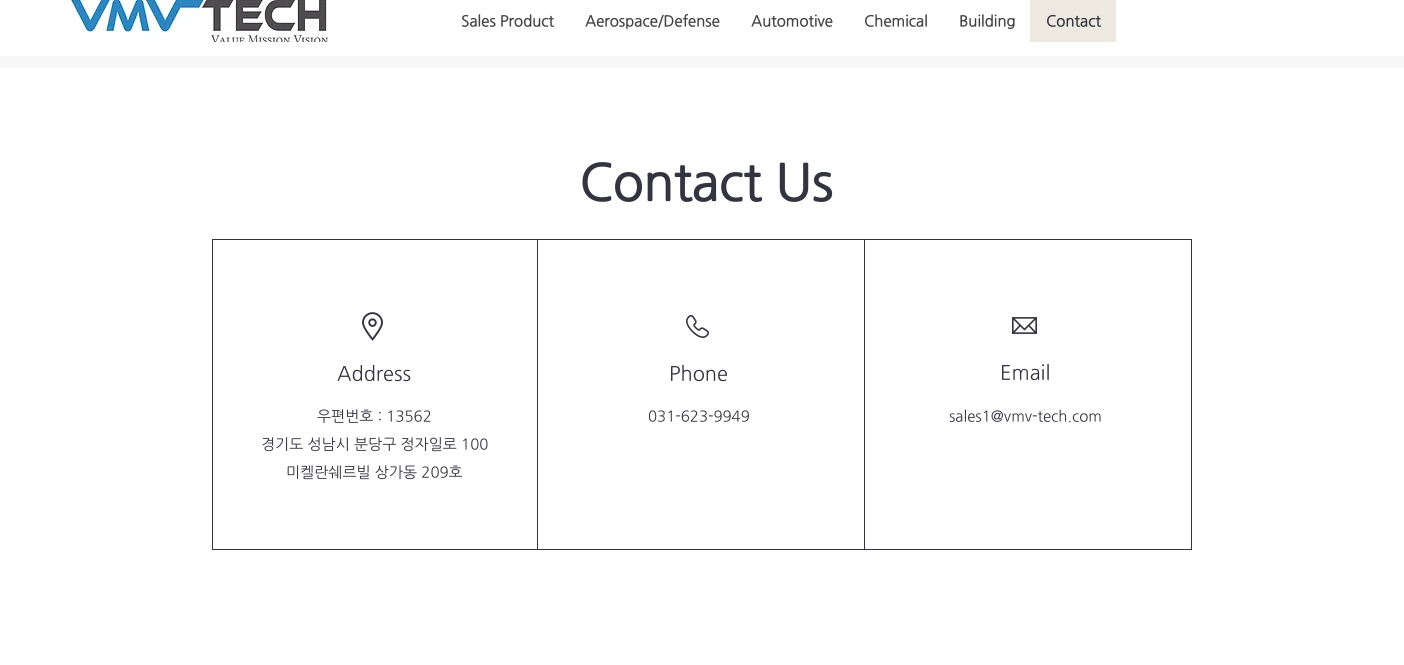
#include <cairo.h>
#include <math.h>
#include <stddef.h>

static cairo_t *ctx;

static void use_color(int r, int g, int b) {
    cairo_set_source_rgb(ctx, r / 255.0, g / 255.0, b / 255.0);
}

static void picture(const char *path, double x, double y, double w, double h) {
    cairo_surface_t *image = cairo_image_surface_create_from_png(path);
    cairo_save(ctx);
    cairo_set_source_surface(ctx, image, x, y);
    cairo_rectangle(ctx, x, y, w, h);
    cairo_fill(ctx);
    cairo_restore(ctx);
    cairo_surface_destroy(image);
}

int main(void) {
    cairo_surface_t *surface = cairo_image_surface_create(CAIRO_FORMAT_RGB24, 1404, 665);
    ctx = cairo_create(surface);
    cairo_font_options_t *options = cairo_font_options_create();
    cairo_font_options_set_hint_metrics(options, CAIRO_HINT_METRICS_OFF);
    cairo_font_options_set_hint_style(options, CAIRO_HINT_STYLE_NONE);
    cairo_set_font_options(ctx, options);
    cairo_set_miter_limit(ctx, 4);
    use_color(255, 255, 255);
    cairo_paint(ctx);
    picture("img1.png", 71, 0, 257, 42);
    cairo_select_font_face(ctx, "NanumGothic", CAIRO_FONT_SLANT_NORMAL, CAIRO_FONT_WEIGHT_BOLD);
    cairo_set_font_size(ctx, 15);
    use_color(68, 68, 68);
    cairo_move_to(ctx, 461, 26);
    cairo_show_text(ctx, "Sales Product");
    cairo_move_to(ctx, 585, 26);
    cairo_show_text(ctx, "Aerospace/Defense");
    cairo_move_to(ctx, 751, 26);
    cairo_show_text(ctx, "Automotive");
    cairo_move_to(ctx, 864, 26);
    cairo_show_text(ctx, "Chemical");
    cairo_move_to(ctx, 959, 26);
    cairo_show_text(ctx, "Building");
    use_color(237, 233, 225);
    cairo_rectangle(ctx, 1030, 0, 86, 42);
    cairo_fill(ctx);
    use_color(51, 52, 63);
    cairo_move_to(ctx, 1046, 26);
    cairo_show_text(ctx, "Contact");
    use_color(247, 247, 247);
    cairo_rectangle(ctx, 0, 56, 1404, 12);
    cairo_fill(ctx);
    cairo_set_font_size(ctx, 50);
    use_color(51, 52, 63);
    cairo_move_to(ctx, 579, 199);
    cairo_show_text(ctx, "Contact Us");
    cairo_rectangle(ctx, 212, 239, 980, 311);
    cairo_fill(ctx);
    use_color(255, 255, 255);
    cairo_rectangle(ctx, 213, 240, 324, 309);
    cairo_fill(ctx);
    picture("img2.png", 362, 312, 21, 29);
    cairo_select_font_face(ctx, "NanumGothic", CAIRO_FONT_SLANT_NORMAL, CAIRO_FONT_WEIGHT_NORMAL);
    cairo_set_font_size(ctx, 20);
    use_color(51, 52, 63);
    cairo_move_to(ctx, 337, 380);
    cairo_show_text(ctx, "Address");
    cairo_set_font_size(ctx, 15);
    cairo_move_to(ctx, 317, 421);
    cairo_show_text(ctx, "우편번호 : 13562");
    cairo_move_to(ctx, 261, 449);
    cairo_show_text(ctx, "경기도 성남시 분당구 정자일로 100");
    cairo_move_to(ctx, 286, 477);
    cairo_show_text(ctx, "미켈란쉐르빌 상가동 209호");
    use_color(255, 255, 255);
    cairo_rectangle(ctx, 538, 240, 326, 309);
    cairo_fill(ctx);
    picture("img3.png", 686, 315, 23, 23);
    cairo_set_font_size(ctx, 20);
    use_color(51, 52, 63);
    cairo_move_to(ctx, 669, 380);
    cairo_show_text(ctx, "Phone");
    cairo_set_font_size(ctx, 15);
    cairo_move_to(ctx, 648, 421);
    cairo_show_text(ctx, "031-623-9949");
    use_color(255, 255, 255);
    cairo_rectangle(ctx, 865, 240, 326, 309);
    cairo_fill(ctx);
    picture("img4.png", 1012, 317, 25, 17);
    cairo_set_font_size(ctx, 20);
    use_color(51, 52, 63);
    cairo_move_to(ctx, 1000, 379);
    cairo_show_text(ctx, "Email");
    cairo_set_font_size(ctx, 15);
    cairo_move_to(ctx, 949, 421);
    cairo_show_text(ctx, "sales1@vmv-tech.com");
    cairo_surface_write_to_png(surface, "result.png");
    cairo_font_options_destroy(options);
    cairo_destroy(ctx);
    cairo_surface_destroy(surface);
    return 0;
}
